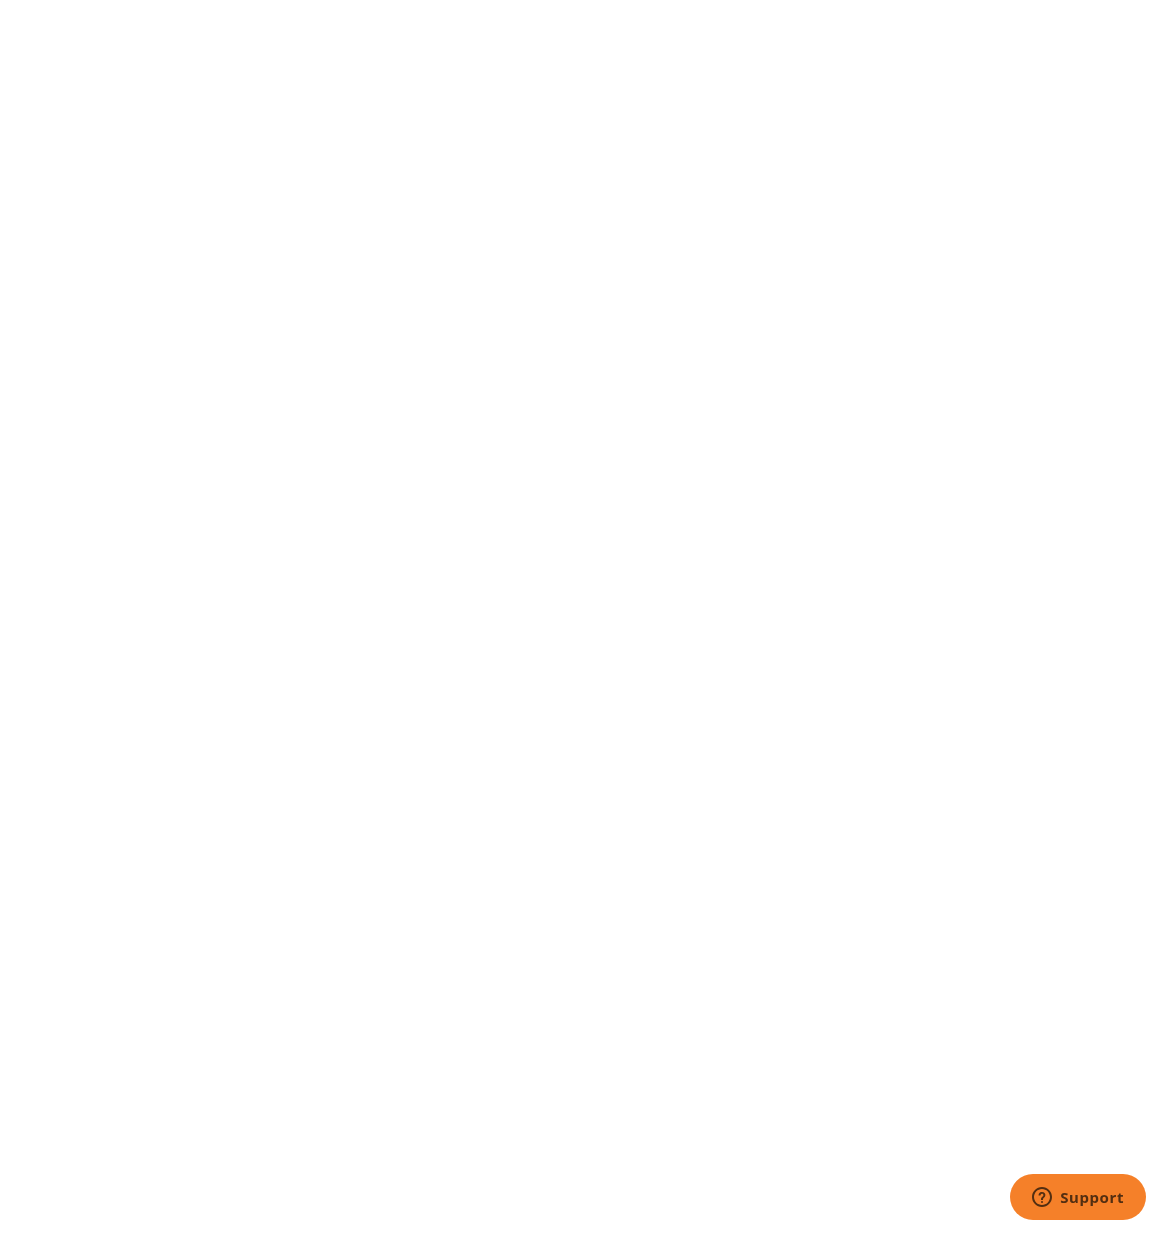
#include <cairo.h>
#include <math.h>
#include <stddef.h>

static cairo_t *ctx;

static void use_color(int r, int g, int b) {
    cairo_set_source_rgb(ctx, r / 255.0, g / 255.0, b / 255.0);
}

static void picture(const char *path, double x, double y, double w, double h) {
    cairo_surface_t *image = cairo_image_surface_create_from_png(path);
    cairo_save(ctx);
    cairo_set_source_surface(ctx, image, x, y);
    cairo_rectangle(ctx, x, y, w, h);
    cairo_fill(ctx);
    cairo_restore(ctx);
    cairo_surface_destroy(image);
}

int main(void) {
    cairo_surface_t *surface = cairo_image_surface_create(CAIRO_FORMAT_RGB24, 1166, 1234);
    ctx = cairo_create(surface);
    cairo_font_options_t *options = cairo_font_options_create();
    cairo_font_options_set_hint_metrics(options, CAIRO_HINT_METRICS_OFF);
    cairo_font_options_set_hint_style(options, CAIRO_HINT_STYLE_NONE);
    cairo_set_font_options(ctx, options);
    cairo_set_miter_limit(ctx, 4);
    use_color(255, 255, 255);
    cairo_paint(ctx);
    picture("img1.png", 1010, 1174, 136, 46);
    cairo_surface_write_to_png(surface, "result.png");
    cairo_font_options_destroy(options);
    cairo_destroy(ctx);
    cairo_surface_destroy(surface);
    return 0;
}
